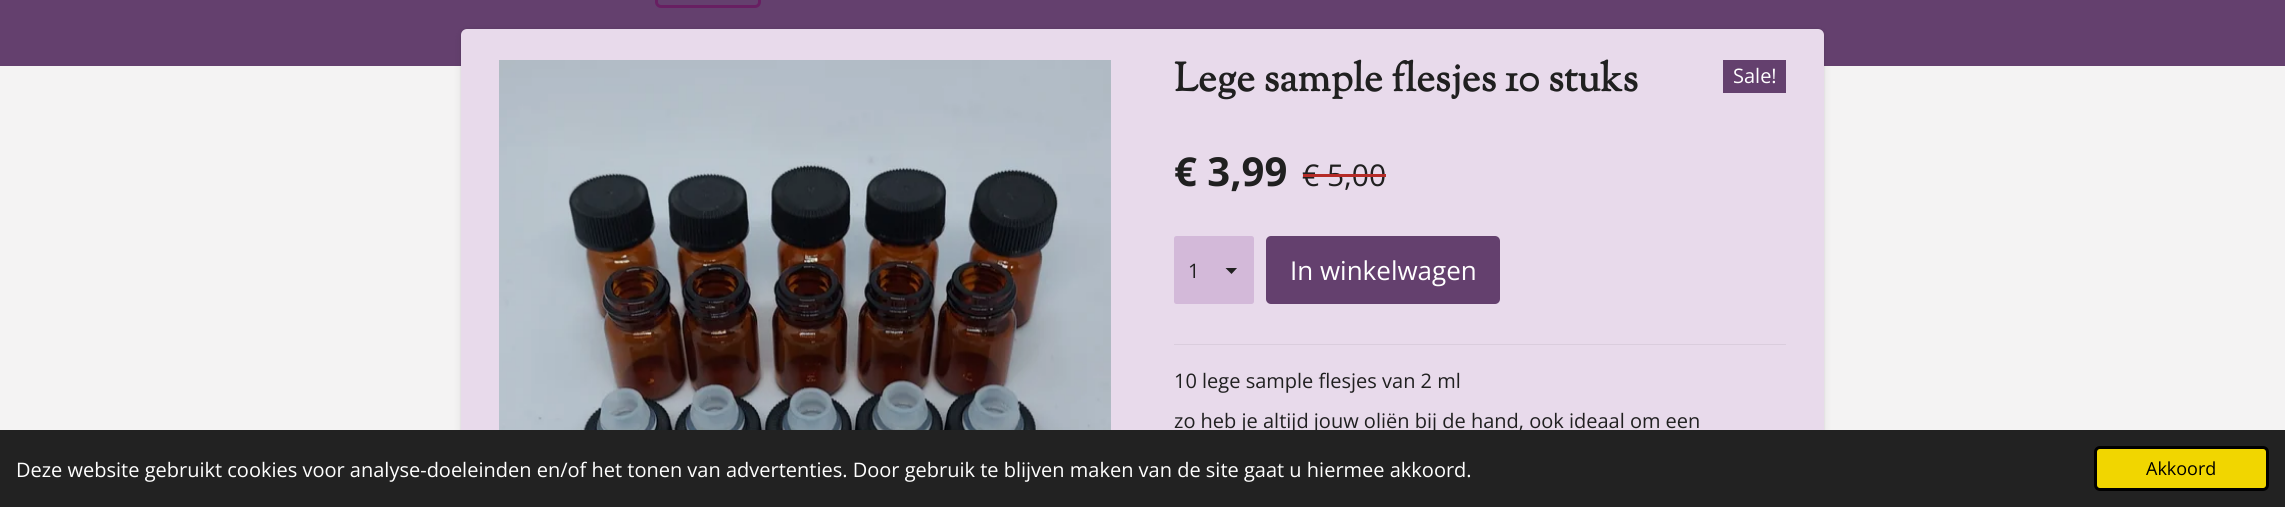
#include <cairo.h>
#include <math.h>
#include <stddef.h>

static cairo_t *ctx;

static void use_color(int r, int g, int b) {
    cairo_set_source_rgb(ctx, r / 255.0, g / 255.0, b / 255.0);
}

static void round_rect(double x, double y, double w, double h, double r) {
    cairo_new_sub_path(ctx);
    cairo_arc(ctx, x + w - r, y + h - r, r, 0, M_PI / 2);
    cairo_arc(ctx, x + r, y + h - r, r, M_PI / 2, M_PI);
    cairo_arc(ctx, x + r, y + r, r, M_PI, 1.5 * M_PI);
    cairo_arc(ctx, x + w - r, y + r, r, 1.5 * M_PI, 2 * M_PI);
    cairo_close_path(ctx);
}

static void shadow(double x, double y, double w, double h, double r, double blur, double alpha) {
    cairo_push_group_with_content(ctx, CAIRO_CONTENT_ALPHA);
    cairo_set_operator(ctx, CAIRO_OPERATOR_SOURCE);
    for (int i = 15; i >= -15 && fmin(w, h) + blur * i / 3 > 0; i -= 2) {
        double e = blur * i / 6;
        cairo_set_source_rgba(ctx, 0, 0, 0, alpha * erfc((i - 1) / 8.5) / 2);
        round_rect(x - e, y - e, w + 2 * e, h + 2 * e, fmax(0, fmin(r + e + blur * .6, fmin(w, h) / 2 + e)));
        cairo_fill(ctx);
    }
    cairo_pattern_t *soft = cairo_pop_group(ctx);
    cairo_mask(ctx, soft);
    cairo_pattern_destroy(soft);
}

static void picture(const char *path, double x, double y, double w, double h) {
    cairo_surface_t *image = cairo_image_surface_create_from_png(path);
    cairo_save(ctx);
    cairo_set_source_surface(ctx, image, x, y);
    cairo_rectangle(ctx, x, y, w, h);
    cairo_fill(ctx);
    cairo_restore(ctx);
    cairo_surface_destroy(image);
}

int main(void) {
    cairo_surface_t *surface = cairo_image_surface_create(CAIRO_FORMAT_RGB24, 2285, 507);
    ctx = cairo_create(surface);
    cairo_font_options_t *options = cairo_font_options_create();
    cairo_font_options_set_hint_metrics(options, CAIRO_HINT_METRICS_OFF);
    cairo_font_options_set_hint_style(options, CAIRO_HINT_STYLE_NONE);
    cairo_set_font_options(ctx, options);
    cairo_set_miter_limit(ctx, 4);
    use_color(244, 243, 243);
    cairo_paint(ctx);
    use_color(100, 64, 110);
    cairo_rectangle(ctx, 0, 0, 2285, 66);
    cairo_fill(ctx);
    round_rect(656.5, -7.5, 103, 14, 4.5);
    use_color(104, 31, 98);
    cairo_set_line_width(ctx, 3);
    cairo_stroke(ctx);
    use_color(0, 0, 0);
    shadow(461, 29, 1363, 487, 6, 1, 0.1);
    shadow(461, 31, 1363, 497, 6, 5, 0.07);
    use_color(232, 218, 235);
    round_rect(461, 29, 1363, 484, 6);
    cairo_fill(ctx);
    picture("img1.png", 499, 60, 612, 370);
    cairo_select_font_face(ctx, "Sorts Mill Goudy", CAIRO_FONT_SLANT_NORMAL, CAIRO_FONT_WEIGHT_BOLD);
    cairo_set_font_size(ctx, 40);
    use_color(32, 32, 32);
    cairo_move_to(ctx, 1174, 91);
    cairo_show_text(ctx, "Lege sample flesjes 10 stuks");
    use_color(100, 64, 110);
    cairo_rectangle(ctx, 1723, 60, 63, 33);
    cairo_fill(ctx);
    cairo_select_font_face(ctx, "Open Sans", CAIRO_FONT_SLANT_NORMAL, CAIRO_FONT_WEIGHT_NORMAL);
    cairo_set_font_size(ctx, 20);
    use_color(255, 255, 255);
    cairo_move_to(ctx, 1733, 83);
    cairo_show_text(ctx, "Sale!");
    cairo_select_font_face(ctx, "Open Sans", CAIRO_FONT_SLANT_NORMAL, CAIRO_FONT_WEIGHT_BOLD);
    cairo_set_font_size(ctx, 40);
    use_color(32, 32, 32);
    cairo_move_to(ctx, 1174, 186);
    cairo_show_text(ctx, "€ 3,99");
    cairo_select_font_face(ctx, "Open Sans", CAIRO_FONT_SLANT_NORMAL, CAIRO_FONT_WEIGHT_NORMAL);
    cairo_set_font_size(ctx, 30);
    cairo_move_to(ctx, 1302, 186);
    cairo_show_text(ctx, "€ 5,00");
    use_color(181, 43, 39);
    cairo_rectangle(ctx, 1303, 174, 83, 3);
    cairo_fill(ctx);
    use_color(211, 185, 217);
    round_rect(1174, 236, 80, 68, 2.5);
    cairo_fill(ctx);
    cairo_save(ctx);
    cairo_rectangle(ctx, 1225, 268, 14, 6);
    cairo_clip(ctx);
    use_color(32, 32, 32);
    cairo_new_path(ctx);
    cairo_move_to(ctx, 1231.5, 274);
    cairo_line_to(ctx, 1225, 267.5);
    cairo_line_to(ctx, 1237.5, 267.5);
    cairo_close_path(ctx);
    cairo_fill(ctx);
    cairo_restore(ctx);
    cairo_set_font_size(ctx, 20);
    use_color(32, 32, 32);
    cairo_move_to(ctx, 1188, 278);
    cairo_show_text(ctx, "1");
    use_color(100, 64, 110);
    round_rect(1266, 236, 234, 68, 5);
    cairo_fill(ctx);
    cairo_set_font_size(ctx, 26);
    use_color(255, 255, 255);
    cairo_move_to(ctx, 1290, 280);
    cairo_show_text(ctx, "In winkelwagen");
    use_color(218, 205, 221);
    cairo_rectangle(ctx, 1174, 344, 612, 1);
    cairo_fill(ctx);
    cairo_set_font_size(ctx, 20);
    use_color(32, 32, 32);
    cairo_move_to(ctx, 1174, 388);
    cairo_show_text(ctx, "10 lege sample flesjes van 2 ml");
    cairo_move_to(ctx, 1174, 428);
    cairo_show_text(ctx, "zo heb je altijd jouw oliën bij de hand, ook ideaal om een");
    use_color(34, 34, 34);
    cairo_rectangle(ctx, 0, 430, 2285, 77);
    cairo_fill(ctx);
    use_color(255, 255, 255);
    cairo_move_to(ctx, 16, 477);
    cairo_show_text(ctx, "Deze website gebruikt cookies voor analyse-doeleinden en/of het tonen van advertenties. Door gebruik te blijven maken van de site gaat u hiermee akkoord.");
    use_color(241, 214, 0);
    round_rect(2095.5, 447.5, 172, 42, 4.5);
    cairo_fill_preserve(ctx);
    use_color(0, 0, 0);
    cairo_stroke(ctx);
    cairo_set_font_size(ctx, 18);
    cairo_move_to(ctx, 2146, 475);
    cairo_show_text(ctx, "Akkoord");
    cairo_surface_write_to_png(surface, "result.png");
    cairo_font_options_destroy(options);
    cairo_destroy(ctx);
    cairo_surface_destroy(surface);
    return 0;
}
